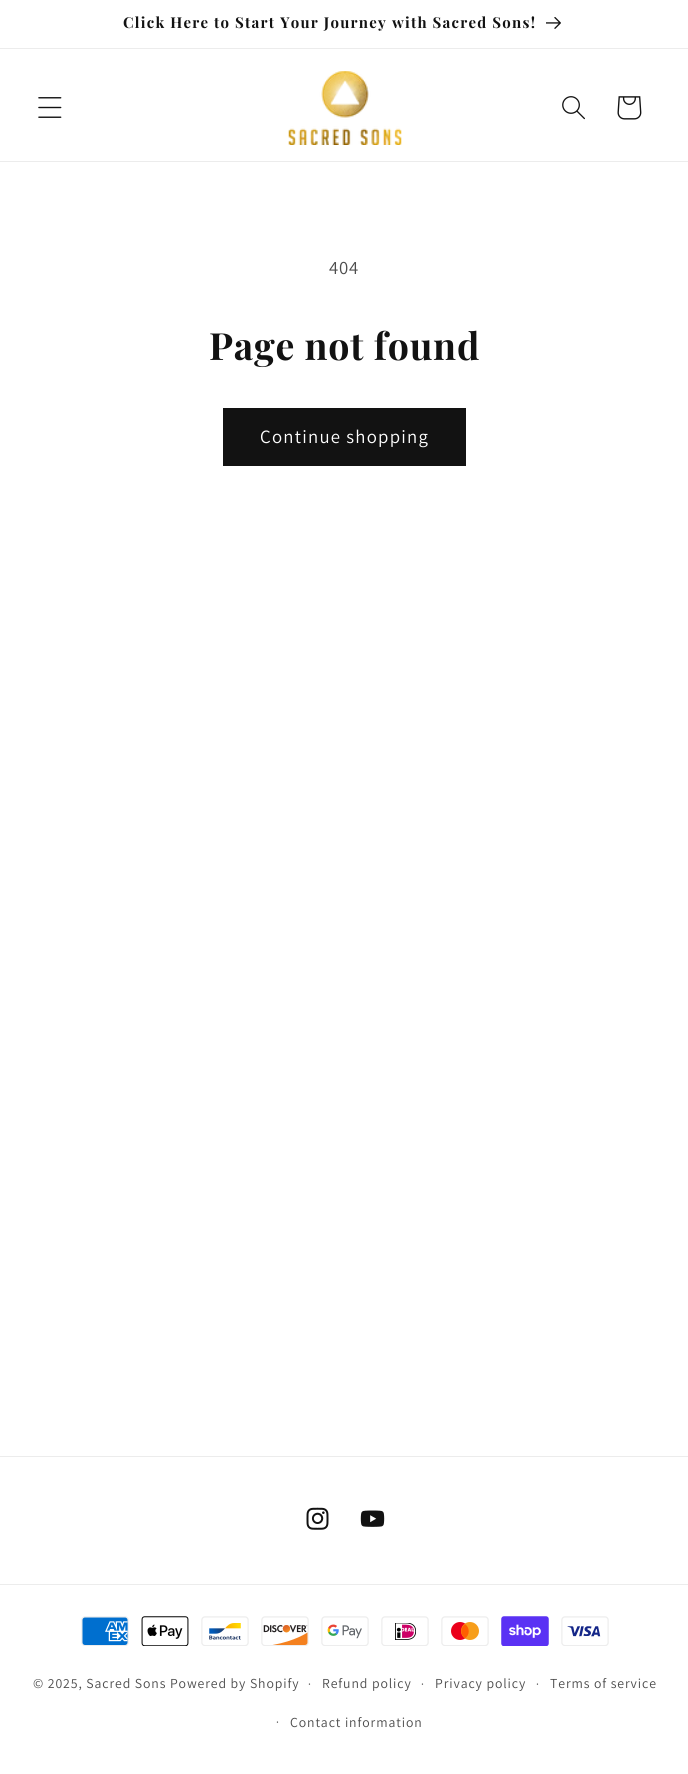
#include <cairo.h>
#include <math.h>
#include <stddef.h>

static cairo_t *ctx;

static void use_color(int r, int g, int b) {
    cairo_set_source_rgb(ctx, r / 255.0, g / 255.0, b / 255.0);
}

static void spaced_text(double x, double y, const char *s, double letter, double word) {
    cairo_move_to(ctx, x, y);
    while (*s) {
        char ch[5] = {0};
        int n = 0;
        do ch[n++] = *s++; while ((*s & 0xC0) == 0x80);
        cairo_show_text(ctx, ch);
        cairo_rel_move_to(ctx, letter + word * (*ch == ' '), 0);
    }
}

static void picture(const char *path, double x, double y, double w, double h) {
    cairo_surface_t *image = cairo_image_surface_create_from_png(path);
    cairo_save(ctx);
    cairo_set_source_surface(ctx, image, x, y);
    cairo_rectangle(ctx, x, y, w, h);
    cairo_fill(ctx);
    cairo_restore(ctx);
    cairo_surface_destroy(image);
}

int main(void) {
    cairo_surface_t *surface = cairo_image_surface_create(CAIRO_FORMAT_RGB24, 688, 1774);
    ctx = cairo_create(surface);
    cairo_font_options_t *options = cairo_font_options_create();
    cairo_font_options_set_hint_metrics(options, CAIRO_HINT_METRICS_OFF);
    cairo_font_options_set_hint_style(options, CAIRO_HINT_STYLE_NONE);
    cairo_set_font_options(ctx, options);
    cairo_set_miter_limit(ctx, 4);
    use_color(255, 255, 255);
    cairo_paint(ctx);
    use_color(236, 236, 236);
    cairo_rectangle(ctx, 0, 48, 688, 1);
    cairo_fill(ctx);
    cairo_select_font_face(ctx, "Playfair Display", CAIRO_FONT_SLANT_NORMAL, CAIRO_FONT_WEIGHT_BOLD);
    cairo_set_font_size(ctx, 15);
    use_color(18, 18, 18);
    spaced_text(123, 28, "Click Here to Start Your Journey with Sacred Sons!", 1.25, 0);
    picture("img1.png", 546, 17, 15, 12);
    use_color(236, 236, 236);
    cairo_rectangle(ctx, 0, 161, 688, 1);
    cairo_fill(ctx);
    picture("img2.png", 38, 97, 24, 21);
    picture("img3.png", 288, 71, 114, 74);
    picture("img4.png", 562, 96, 23, 24);
    picture("img5.png", 617, 96, 25, 24);
    cairo_select_font_face(ctx, "Assistant", CAIRO_FONT_SLANT_NORMAL, CAIRO_FONT_WEIGHT_NORMAL);
    cairo_set_font_size(ctx, 18.75);
    use_color(77, 77, 77);
    spaced_text(329, 274, "404", 0.75, 0);
    cairo_select_font_face(ctx, "Playfair Display", CAIRO_FONT_SLANT_NORMAL, CAIRO_FONT_WEIGHT_BOLD);
    cairo_set_font_size(ctx, 37.5);
    use_color(18, 18, 18);
    spaced_text(209, 360, "Page not found", 0.75, 0);
    cairo_rectangle(ctx, 223, 408, 243, 58);
    cairo_fill(ctx);
    cairo_select_font_face(ctx, "Assistant", CAIRO_FONT_SLANT_NORMAL, CAIRO_FONT_WEIGHT_NORMAL);
    cairo_set_font_size(ctx, 18.75);
    use_color(255, 255, 255);
    spaced_text(260, 443, "Continue shopping", 1.25, 0);
    use_color(236, 236, 236);
    cairo_rectangle(ctx, 0, 1456, 688, 1);
    cairo_fill(ctx);
    picture("img6.png", 306, 1507, 23, 23);
    picture("img7.png", 360, 1510, 25, 17);
    cairo_rectangle(ctx, 0, 1584, 688, 1);
    cairo_fill(ctx);
    picture("img8.png", 81, 1616, 48, 30);
    picture("img9.png", 141, 1616, 48, 30);
    picture("img10.png", 201, 1616, 48, 30);
    picture("img11.png", 261, 1616, 48, 30);
    picture("img12.png", 321, 1616, 48, 30);
    picture("img13.png", 381, 1616, 48, 30);
    picture("img14.png", 441, 1616, 48, 30);
    picture("img15.png", 501, 1616, 48, 30);
    picture("img16.png", 561, 1616, 48, 30);
    cairo_set_font_size(ctx, 13.75);
    use_color(77, 77, 77);
    spaced_text(33, 1688, "© 2025, Sacred Sons Powered by Shopify", 0.9, 0);
    cairo_set_font_size(ctx, 12);
    spaced_text(308, 1688, "·", 0.9, 0);
    cairo_set_font_size(ctx, 13.75);
    spaced_text(322, 1688, "Refund policy", 0.9, 0);
    cairo_set_font_size(ctx, 12);
    spaced_text(421, 1688, "·", 0.9, 0);
    cairo_set_font_size(ctx, 13.75);
    spaced_text(435, 1688, "Privacy policy", 0.9, 0);
    cairo_set_font_size(ctx, 12);
    spaced_text(536, 1688, "·", 0.9, 0);
    cairo_set_font_size(ctx, 13.75);
    spaced_text(550, 1688, "Terms of service", 0.9, 0);
    cairo_set_font_size(ctx, 12);
    spaced_text(276, 1726, "·", 0.9, 0);
    cairo_set_font_size(ctx, 13.75);
    spaced_text(290, 1727, "Contact information", 0.9, 0);
    cairo_surface_write_to_png(surface, "result.png");
    cairo_font_options_destroy(options);
    cairo_destroy(ctx);
    cairo_surface_destroy(surface);
    return 0;
}
